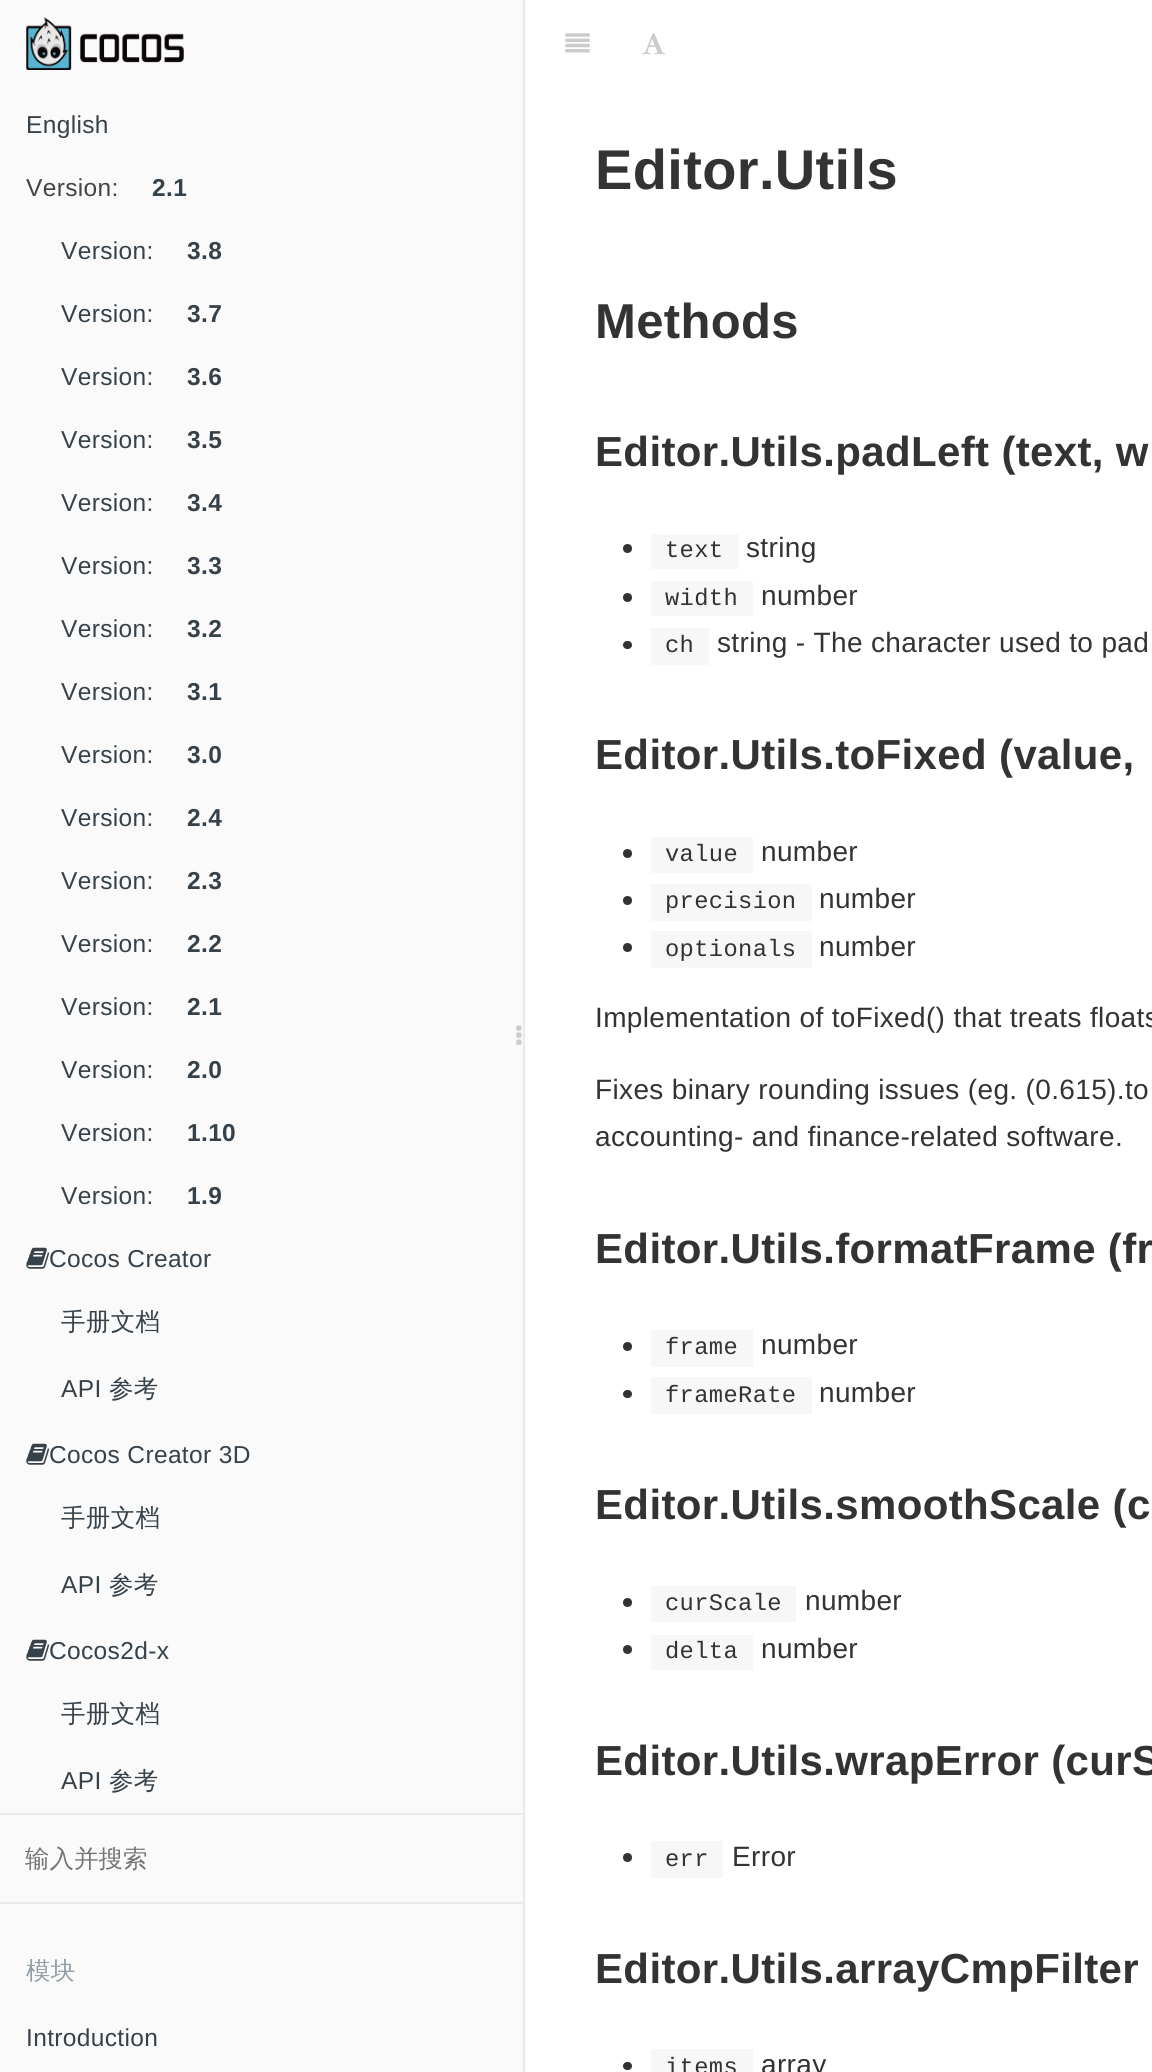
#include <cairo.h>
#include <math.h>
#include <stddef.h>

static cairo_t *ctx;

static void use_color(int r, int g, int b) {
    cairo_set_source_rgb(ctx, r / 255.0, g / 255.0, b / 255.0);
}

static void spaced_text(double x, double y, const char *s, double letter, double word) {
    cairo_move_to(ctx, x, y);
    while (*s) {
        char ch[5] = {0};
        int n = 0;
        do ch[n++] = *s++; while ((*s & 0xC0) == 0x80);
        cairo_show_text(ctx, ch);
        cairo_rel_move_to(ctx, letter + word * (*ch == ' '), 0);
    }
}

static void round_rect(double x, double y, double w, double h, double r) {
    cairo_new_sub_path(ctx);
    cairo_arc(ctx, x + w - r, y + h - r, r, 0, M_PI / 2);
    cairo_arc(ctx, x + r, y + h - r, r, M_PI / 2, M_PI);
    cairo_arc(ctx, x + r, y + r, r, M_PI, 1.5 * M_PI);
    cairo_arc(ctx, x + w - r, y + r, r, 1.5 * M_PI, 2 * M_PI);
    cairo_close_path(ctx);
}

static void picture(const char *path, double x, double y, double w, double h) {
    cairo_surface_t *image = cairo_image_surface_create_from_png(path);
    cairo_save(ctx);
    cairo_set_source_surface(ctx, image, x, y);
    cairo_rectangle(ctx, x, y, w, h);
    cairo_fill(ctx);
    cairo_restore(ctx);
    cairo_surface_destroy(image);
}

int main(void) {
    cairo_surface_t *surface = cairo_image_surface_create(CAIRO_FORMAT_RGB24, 1152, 2072);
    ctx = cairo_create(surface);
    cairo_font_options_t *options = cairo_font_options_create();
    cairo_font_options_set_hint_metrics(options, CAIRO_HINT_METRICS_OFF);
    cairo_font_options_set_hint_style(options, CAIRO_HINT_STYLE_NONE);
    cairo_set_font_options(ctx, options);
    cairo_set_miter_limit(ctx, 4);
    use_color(255, 255, 255);
    cairo_paint(ctx);
    use_color(250, 250, 250);
    cairo_rectangle(ctx, 0, 0, 523, 2072);
    cairo_fill(ctx);
    use_color(233, 233, 233);
    cairo_rectangle(ctx, 523, 0, 2, 2072);
    cairo_fill(ctx);
    picture("img1.png", 26, 17, 158, 53);
    cairo_select_font_face(ctx, "Liberation Sans", CAIRO_FONT_SLANT_NORMAL, CAIRO_FONT_WEIGHT_NORMAL);
    cairo_set_font_size(ctx, 24.5);
    use_color(54, 65, 73);
    spaced_text(26, 133, "English", 0.35, 0);
    use_color(68, 68, 68);
    spaced_text(26, 196, "Version:", 0.35, 0);
    cairo_select_font_face(ctx, "Liberation Sans", CAIRO_FONT_SLANT_NORMAL, CAIRO_FONT_WEIGHT_BOLD);
    use_color(54, 65, 73);
    spaced_text(152, 196, "2.1", 0.35, 0);
    cairo_select_font_face(ctx, "Liberation Sans", CAIRO_FONT_SLANT_NORMAL, CAIRO_FONT_WEIGHT_NORMAL);
    spaced_text(61, 259, "Version:", 0.35, 0);
    cairo_select_font_face(ctx, "Liberation Sans", CAIRO_FONT_SLANT_NORMAL, CAIRO_FONT_WEIGHT_BOLD);
    spaced_text(187, 259, "3.8", 0.35, 0);
    cairo_select_font_face(ctx, "Liberation Sans", CAIRO_FONT_SLANT_NORMAL, CAIRO_FONT_WEIGHT_NORMAL);
    spaced_text(61, 322, "Version:", 0.35, 0);
    cairo_select_font_face(ctx, "Liberation Sans", CAIRO_FONT_SLANT_NORMAL, CAIRO_FONT_WEIGHT_BOLD);
    spaced_text(187, 322, "3.7", 0.35, 0);
    cairo_select_font_face(ctx, "Liberation Sans", CAIRO_FONT_SLANT_NORMAL, CAIRO_FONT_WEIGHT_NORMAL);
    spaced_text(61, 385, "Version:", 0.35, 0);
    cairo_select_font_face(ctx, "Liberation Sans", CAIRO_FONT_SLANT_NORMAL, CAIRO_FONT_WEIGHT_BOLD);
    spaced_text(187, 385, "3.6", 0.35, 0);
    cairo_select_font_face(ctx, "Liberation Sans", CAIRO_FONT_SLANT_NORMAL, CAIRO_FONT_WEIGHT_NORMAL);
    spaced_text(61, 448, "Version:", 0.35, 0);
    cairo_select_font_face(ctx, "Liberation Sans", CAIRO_FONT_SLANT_NORMAL, CAIRO_FONT_WEIGHT_BOLD);
    spaced_text(187, 448, "3.5", 0.35, 0);
    cairo_select_font_face(ctx, "Liberation Sans", CAIRO_FONT_SLANT_NORMAL, CAIRO_FONT_WEIGHT_NORMAL);
    spaced_text(61, 511, "Version:", 0.35, 0);
    cairo_select_font_face(ctx, "Liberation Sans", CAIRO_FONT_SLANT_NORMAL, CAIRO_FONT_WEIGHT_BOLD);
    spaced_text(187, 511, "3.4", 0.35, 0);
    cairo_select_font_face(ctx, "Liberation Sans", CAIRO_FONT_SLANT_NORMAL, CAIRO_FONT_WEIGHT_NORMAL);
    spaced_text(61, 574, "Version:", 0.35, 0);
    cairo_select_font_face(ctx, "Liberation Sans", CAIRO_FONT_SLANT_NORMAL, CAIRO_FONT_WEIGHT_BOLD);
    spaced_text(187, 574, "3.3", 0.35, 0);
    cairo_select_font_face(ctx, "Liberation Sans", CAIRO_FONT_SLANT_NORMAL, CAIRO_FONT_WEIGHT_NORMAL);
    spaced_text(61, 637, "Version:", 0.35, 0);
    cairo_select_font_face(ctx, "Liberation Sans", CAIRO_FONT_SLANT_NORMAL, CAIRO_FONT_WEIGHT_BOLD);
    spaced_text(187, 637, "3.2", 0.35, 0);
    cairo_select_font_face(ctx, "Liberation Sans", CAIRO_FONT_SLANT_NORMAL, CAIRO_FONT_WEIGHT_NORMAL);
    spaced_text(61, 700, "Version:", 0.35, 0);
    cairo_select_font_face(ctx, "Liberation Sans", CAIRO_FONT_SLANT_NORMAL, CAIRO_FONT_WEIGHT_BOLD);
    spaced_text(187, 700, "3.1", 0.35, 0);
    cairo_select_font_face(ctx, "Liberation Sans", CAIRO_FONT_SLANT_NORMAL, CAIRO_FONT_WEIGHT_NORMAL);
    spaced_text(61, 763, "Version:", 0.35, 0);
    cairo_select_font_face(ctx, "Liberation Sans", CAIRO_FONT_SLANT_NORMAL, CAIRO_FONT_WEIGHT_BOLD);
    spaced_text(187, 763, "3.0", 0.35, 0);
    cairo_select_font_face(ctx, "Liberation Sans", CAIRO_FONT_SLANT_NORMAL, CAIRO_FONT_WEIGHT_NORMAL);
    spaced_text(61, 826, "Version:", 0.35, 0);
    cairo_select_font_face(ctx, "Liberation Sans", CAIRO_FONT_SLANT_NORMAL, CAIRO_FONT_WEIGHT_BOLD);
    spaced_text(187, 826, "2.4", 0.35, 0);
    cairo_select_font_face(ctx, "Liberation Sans", CAIRO_FONT_SLANT_NORMAL, CAIRO_FONT_WEIGHT_NORMAL);
    spaced_text(61, 889, "Version:", 0.35, 0);
    cairo_select_font_face(ctx, "Liberation Sans", CAIRO_FONT_SLANT_NORMAL, CAIRO_FONT_WEIGHT_BOLD);
    spaced_text(187, 889, "2.3", 0.35, 0);
    cairo_select_font_face(ctx, "Liberation Sans", CAIRO_FONT_SLANT_NORMAL, CAIRO_FONT_WEIGHT_NORMAL);
    spaced_text(61, 952, "Version:", 0.35, 0);
    cairo_select_font_face(ctx, "Liberation Sans", CAIRO_FONT_SLANT_NORMAL, CAIRO_FONT_WEIGHT_BOLD);
    spaced_text(187, 952, "2.2", 0.35, 0);
    cairo_select_font_face(ctx, "Liberation Sans", CAIRO_FONT_SLANT_NORMAL, CAIRO_FONT_WEIGHT_NORMAL);
    spaced_text(61, 1015, "Version:", 0.35, 0);
    cairo_select_font_face(ctx, "Liberation Sans", CAIRO_FONT_SLANT_NORMAL, CAIRO_FONT_WEIGHT_BOLD);
    spaced_text(187, 1015, "2.1", 0.35, 0);
    cairo_select_font_face(ctx, "Liberation Sans", CAIRO_FONT_SLANT_NORMAL, CAIRO_FONT_WEIGHT_NORMAL);
    spaced_text(61, 1078, "Version:", 0.35, 0);
    cairo_select_font_face(ctx, "Liberation Sans", CAIRO_FONT_SLANT_NORMAL, CAIRO_FONT_WEIGHT_BOLD);
    spaced_text(187, 1078, "2.0", 0.35, 0);
    cairo_select_font_face(ctx, "Liberation Sans", CAIRO_FONT_SLANT_NORMAL, CAIRO_FONT_WEIGHT_NORMAL);
    spaced_text(61, 1141, "Version:", 0.35, 0);
    cairo_select_font_face(ctx, "Liberation Sans", CAIRO_FONT_SLANT_NORMAL, CAIRO_FONT_WEIGHT_BOLD);
    spaced_text(187, 1141, "1.10", 0.35, 0);
    cairo_select_font_face(ctx, "Liberation Sans", CAIRO_FONT_SLANT_NORMAL, CAIRO_FONT_WEIGHT_NORMAL);
    spaced_text(61, 1204, "Version:", 0.35, 0);
    cairo_select_font_face(ctx, "Liberation Sans", CAIRO_FONT_SLANT_NORMAL, CAIRO_FONT_WEIGHT_BOLD);
    spaced_text(187, 1204, "1.9", 0.35, 0);
    picture("img2.png", 26, 1247, 23, 22);
    cairo_select_font_face(ctx, "Liberation Sans", CAIRO_FONT_SLANT_NORMAL, CAIRO_FONT_WEIGHT_NORMAL);
    spaced_text(49, 1267, "Cocos Creator", 0.35, 0);
    cairo_select_font_face(ctx, "WenQuanYi Zen Hei Medium", CAIRO_FONT_SLANT_NORMAL, CAIRO_FONT_WEIGHT_NORMAL);
    spaced_text(61, 1330, "手册文档", 0.35, 0);
    cairo_select_font_face(ctx, "Liberation Sans", CAIRO_FONT_SLANT_NORMAL, CAIRO_FONT_WEIGHT_NORMAL);
    spaced_text(61, 1397, "API", 0.35, 0);
    cairo_select_font_face(ctx, "WenQuanYi Zen Hei Medium", CAIRO_FONT_SLANT_NORMAL, CAIRO_FONT_WEIGHT_NORMAL);
    spaced_text(109, 1397, "参考", 0.35, 0);
    picture("img2.png", 26, 1443, 23, 22);
    cairo_select_font_face(ctx, "Liberation Sans", CAIRO_FONT_SLANT_NORMAL, CAIRO_FONT_WEIGHT_NORMAL);
    spaced_text(49, 1463, "Cocos Creator 3D", 0.35, 0);
    cairo_select_font_face(ctx, "WenQuanYi Zen Hei Medium", CAIRO_FONT_SLANT_NORMAL, CAIRO_FONT_WEIGHT_NORMAL);
    spaced_text(61, 1526, "手册文档", 0.35, 0);
    cairo_select_font_face(ctx, "Liberation Sans", CAIRO_FONT_SLANT_NORMAL, CAIRO_FONT_WEIGHT_NORMAL);
    spaced_text(61, 1593, "API", 0.35, 0);
    cairo_select_font_face(ctx, "WenQuanYi Zen Hei Medium", CAIRO_FONT_SLANT_NORMAL, CAIRO_FONT_WEIGHT_NORMAL);
    spaced_text(109, 1593, "参考", 0.35, 0);
    picture("img2.png", 26, 1639, 23, 22);
    cairo_select_font_face(ctx, "Liberation Sans", CAIRO_FONT_SLANT_NORMAL, CAIRO_FONT_WEIGHT_NORMAL);
    spaced_text(49, 1659, "Cocos2d-x", 0.35, 0);
    cairo_select_font_face(ctx, "WenQuanYi Zen Hei Medium", CAIRO_FONT_SLANT_NORMAL, CAIRO_FONT_WEIGHT_NORMAL);
    spaced_text(61, 1722, "手册文档", 0.35, 0);
    cairo_select_font_face(ctx, "Liberation Sans", CAIRO_FONT_SLANT_NORMAL, CAIRO_FONT_WEIGHT_NORMAL);
    spaced_text(61, 1789, "API", 0.35, 0);
    cairo_select_font_face(ctx, "WenQuanYi Zen Hei Medium", CAIRO_FONT_SLANT_NORMAL, CAIRO_FONT_WEIGHT_NORMAL);
    spaced_text(109, 1789, "参考", 0.35, 0);
    picture("img3.png", 516, 1025, 6, 20);
    use_color(233, 233, 233);
    cairo_rectangle(ctx, 0, 1813, 523, 2);
    cairo_fill(ctx);
    cairo_rectangle(ctx, 0, 1902, 523, 2);
    cairo_fill(ctx);
    use_color(117, 117, 117);
    cairo_move_to(ctx, 25, 1867);
    cairo_show_text(ctx, "输入并搜索");
    use_color(147, 157, 163);
    spaced_text(26, 1979, "模块", 0.35, 0);
    cairo_select_font_face(ctx, "Liberation Sans", CAIRO_FONT_SLANT_NORMAL, CAIRO_FONT_WEIGHT_NORMAL);
    use_color(54, 65, 73);
    spaced_text(26, 2046, "Introduction", 0.35, 0);
    picture("img4.png", 565, 33, 25, 20);
    picture("img5.png", 642, 33, 23, 22);
    cairo_select_font_face(ctx, "Liberation Sans", CAIRO_FONT_SLANT_NORMAL, CAIRO_FONT_WEIGHT_BOLD);
    cairo_set_font_size(ctx, 56);
    use_color(51, 51, 51);
    spaced_text(595, 189, "Editor.Utils", 0.35, 0);
    cairo_set_font_size(ctx, 49);
    spaced_text(595, 338, "Methods", 0.35, 0);
    cairo_set_font_size(ctx, 42);
    spaced_text(595, 466, "Editor.Utils.padLeft (text, w", 0.35, 0);
    cairo_new_path(ctx);
    cairo_arc(ctx, 627.5, 548.5, 4.5, 0, 2 * M_PI);
    cairo_fill(ctx);
    use_color(247, 247, 247);
    cairo_rectangle(ctx, 651, 534, 88, 35);
    cairo_fill(ctx);
    cairo_select_font_face(ctx, "Liberation Mono", CAIRO_FONT_SLANT_NORMAL, CAIRO_FONT_WEIGHT_NORMAL);
    cairo_set_font_size(ctx, 23.75);
    use_color(51, 51, 51);
    spaced_text(665, 557, "text", 0.35, 0);
    cairo_select_font_face(ctx, "Liberation Sans", CAIRO_FONT_SLANT_NORMAL, CAIRO_FONT_WEIGHT_NORMAL);
    cairo_set_font_size(ctx, 28);
    spaced_text(746, 557, "string", 0.35, 0);
    cairo_new_path(ctx);
    cairo_arc(ctx, 627.5, 597.5, 4.5, 0, 2 * M_PI);
    cairo_fill(ctx);
    use_color(247, 247, 247);
    cairo_rectangle(ctx, 651, 581, 102, 35);
    cairo_fill(ctx);
    cairo_select_font_face(ctx, "Liberation Mono", CAIRO_FONT_SLANT_NORMAL, CAIRO_FONT_WEIGHT_NORMAL);
    cairo_set_font_size(ctx, 23.75);
    use_color(51, 51, 51);
    spaced_text(665, 605, "width", 0.35, 0);
    cairo_select_font_face(ctx, "Liberation Sans", CAIRO_FONT_SLANT_NORMAL, CAIRO_FONT_WEIGHT_NORMAL);
    cairo_set_font_size(ctx, 28);
    spaced_text(761, 605, "number", 0.35, 0);
    round_rect(623, 641, 9, 8, 4);
    cairo_fill(ctx);
    use_color(247, 247, 247);
    cairo_rectangle(ctx, 651, 628, 58, 37);
    cairo_fill(ctx);
    cairo_select_font_face(ctx, "Liberation Mono", CAIRO_FONT_SLANT_NORMAL, CAIRO_FONT_WEIGHT_NORMAL);
    cairo_set_font_size(ctx, 23.75);
    use_color(51, 51, 51);
    spaced_text(665, 652, "ch", 0.35, 0);
    cairo_select_font_face(ctx, "Liberation Sans", CAIRO_FONT_SLANT_NORMAL, CAIRO_FONT_WEIGHT_NORMAL);
    cairo_set_font_size(ctx, 28);
    spaced_text(717, 652, "string - The character used to pad", 0.35, 0);
    cairo_select_font_face(ctx, "Liberation Sans", CAIRO_FONT_SLANT_NORMAL, CAIRO_FONT_WEIGHT_BOLD);
    cairo_set_font_size(ctx, 42);
    spaced_text(595, 769, "Editor.Utils.toFixed (value,", 0.35, 0);
    cairo_new_path(ctx);
    cairo_arc(ctx, 627.5, 853.5, 4.5, 0, 2 * M_PI);
    cairo_fill(ctx);
    use_color(247, 247, 247);
    cairo_rectangle(ctx, 651, 837, 102, 36);
    cairo_fill(ctx);
    cairo_select_font_face(ctx, "Liberation Mono", CAIRO_FONT_SLANT_NORMAL, CAIRO_FONT_WEIGHT_NORMAL);
    cairo_set_font_size(ctx, 23.75);
    use_color(51, 51, 51);
    spaced_text(665, 861, "value", 0.35, 0);
    cairo_select_font_face(ctx, "Liberation Sans", CAIRO_FONT_SLANT_NORMAL, CAIRO_FONT_WEIGHT_NORMAL);
    cairo_set_font_size(ctx, 28);
    spaced_text(761, 861, "number", 0.35, 0);
    cairo_new_path(ctx);
    cairo_arc(ctx, 627.5, 900.5, 4.5, 0, 2 * M_PI);
    cairo_fill(ctx);
    use_color(247, 247, 247);
    cairo_rectangle(ctx, 651, 884, 161, 37);
    cairo_fill(ctx);
    cairo_select_font_face(ctx, "Liberation Mono", CAIRO_FONT_SLANT_NORMAL, CAIRO_FONT_WEIGHT_NORMAL);
    cairo_set_font_size(ctx, 23.75);
    use_color(51, 51, 51);
    spaced_text(665, 908, "precision", 0.35, 0);
    cairo_select_font_face(ctx, "Liberation Sans", CAIRO_FONT_SLANT_NORMAL, CAIRO_FONT_WEIGHT_NORMAL);
    cairo_set_font_size(ctx, 28);
    spaced_text(819, 908, "number", 0.35, 0);
    cairo_new_path(ctx);
    cairo_arc(ctx, 627.5, 947.5, 4.5, 0, 2 * M_PI);
    cairo_fill(ctx);
    use_color(247, 247, 247);
    cairo_rectangle(ctx, 651, 931, 161, 37);
    cairo_fill(ctx);
    cairo_select_font_face(ctx, "Liberation Mono", CAIRO_FONT_SLANT_NORMAL, CAIRO_FONT_WEIGHT_NORMAL);
    cairo_set_font_size(ctx, 23.75);
    use_color(51, 51, 51);
    spaced_text(665, 956, "optionals", 0.35, 0);
    cairo_select_font_face(ctx, "Liberation Sans", CAIRO_FONT_SLANT_NORMAL, CAIRO_FONT_WEIGHT_NORMAL);
    cairo_set_font_size(ctx, 28);
    spaced_text(819, 956, "number", 0.35, 0);
    spaced_text(595, 1027, "Implementation of toFixed() that treats floats", 0.35, 0);
    spaced_text(595, 1099, "Fixes binary rounding issues (eg. (0.615).to", 0.35, 0);
    spaced_text(595, 1146, "accounting- and finance-related software.", 0.35, 0);
    cairo_select_font_face(ctx, "Liberation Sans", CAIRO_FONT_SLANT_NORMAL, CAIRO_FONT_WEIGHT_BOLD);
    cairo_set_font_size(ctx, 42);
    spaced_text(595, 1263, "Editor.Utils.formatFrame (fr", 0.35, 0);
    cairo_new_path(ctx);
    cairo_arc(ctx, 627.5, 1346.5, 4.5, 0, 2 * M_PI);
    cairo_fill(ctx);
    use_color(247, 247, 247);
    cairo_rectangle(ctx, 651, 1330, 102, 37);
    cairo_fill(ctx);
    cairo_select_font_face(ctx, "Liberation Mono", CAIRO_FONT_SLANT_NORMAL, CAIRO_FONT_WEIGHT_NORMAL);
    cairo_set_font_size(ctx, 23.75);
    use_color(51, 51, 51);
    spaced_text(665, 1354, "frame", 0.35, 0);
    cairo_select_font_face(ctx, "Liberation Sans", CAIRO_FONT_SLANT_NORMAL, CAIRO_FONT_WEIGHT_NORMAL);
    cairo_set_font_size(ctx, 28);
    spaced_text(761, 1354, "number", 0.35, 0);
    round_rect(623, 1390, 9, 8, 4);
    cairo_fill(ctx);
    use_color(247, 247, 247);
    cairo_rectangle(ctx, 651, 1377, 161, 37);
    cairo_fill(ctx);
    cairo_select_font_face(ctx, "Liberation Mono", CAIRO_FONT_SLANT_NORMAL, CAIRO_FONT_WEIGHT_NORMAL);
    cairo_set_font_size(ctx, 23.75);
    use_color(51, 51, 51);
    spaced_text(665, 1402, "frameRate", 0.35, 0);
    cairo_select_font_face(ctx, "Liberation Sans", CAIRO_FONT_SLANT_NORMAL, CAIRO_FONT_WEIGHT_NORMAL);
    cairo_set_font_size(ctx, 28);
    spaced_text(819, 1402, "number", 0.35, 0);
    cairo_select_font_face(ctx, "Liberation Sans", CAIRO_FONT_SLANT_NORMAL, CAIRO_FONT_WEIGHT_BOLD);
    cairo_set_font_size(ctx, 42);
    spaced_text(595, 1519, "Editor.Utils.smoothScale (c", 0.35, 0);
    cairo_new_path(ctx);
    cairo_arc(ctx, 627.5, 1602.5, 4.5, 0, 2 * M_PI);
    cairo_fill(ctx);
    use_color(247, 247, 247);
    cairo_rectangle(ctx, 651, 1586, 145, 36);
    cairo_fill(ctx);
    cairo_select_font_face(ctx, "Liberation Mono", CAIRO_FONT_SLANT_NORMAL, CAIRO_FONT_WEIGHT_NORMAL);
    cairo_set_font_size(ctx, 23.75);
    use_color(51, 51, 51);
    spaced_text(665, 1610, "curScale", 0.35, 0);
    cairo_select_font_face(ctx, "Liberation Sans", CAIRO_FONT_SLANT_NORMAL, CAIRO_FONT_WEIGHT_NORMAL);
    cairo_set_font_size(ctx, 28);
    spaced_text(805, 1610, "number", 0.35, 0);
    cairo_new_path(ctx);
    cairo_arc(ctx, 627.5, 1649.5, 4.5, 0, 2 * M_PI);
    cairo_fill(ctx);
    use_color(247, 247, 247);
    cairo_rectangle(ctx, 651, 1635, 102, 35);
    cairo_fill(ctx);
    cairo_select_font_face(ctx, "Liberation Mono", CAIRO_FONT_SLANT_NORMAL, CAIRO_FONT_WEIGHT_NORMAL);
    cairo_set_font_size(ctx, 23.75);
    use_color(51, 51, 51);
    spaced_text(665, 1658, "delta", 0.35, 0);
    cairo_select_font_face(ctx, "Liberation Sans", CAIRO_FONT_SLANT_NORMAL, CAIRO_FONT_WEIGHT_NORMAL);
    cairo_set_font_size(ctx, 28);
    spaced_text(761, 1658, "number", 0.35, 0);
    cairo_select_font_face(ctx, "Liberation Sans", CAIRO_FONT_SLANT_NORMAL, CAIRO_FONT_WEIGHT_BOLD);
    cairo_set_font_size(ctx, 42);
    spaced_text(595, 1775, "Editor.Utils.wrapError (curS", 0.35, 0);
    cairo_new_path(ctx);
    cairo_arc(ctx, 627.5, 1857.5, 4.5, 0, 2 * M_PI);
    cairo_fill(ctx);
    use_color(247, 247, 247);
    cairo_rectangle(ctx, 651, 1841, 72, 37);
    cairo_fill(ctx);
    cairo_select_font_face(ctx, "Liberation Mono", CAIRO_FONT_SLANT_NORMAL, CAIRO_FONT_WEIGHT_NORMAL);
    cairo_set_font_size(ctx, 23.75);
    use_color(51, 51, 51);
    spaced_text(665, 1866, "err", 0.35, 0);
    cairo_select_font_face(ctx, "Liberation Sans", CAIRO_FONT_SLANT_NORMAL, CAIRO_FONT_WEIGHT_NORMAL);
    cairo_set_font_size(ctx, 28);
    spaced_text(732, 1866, "Error", 0.35, 0);
    cairo_select_font_face(ctx, "Liberation Sans", CAIRO_FONT_SLANT_NORMAL, CAIRO_FONT_WEIGHT_BOLD);
    cairo_set_font_size(ctx, 42);
    spaced_text(595, 1983, "Editor.Utils.arrayCmpFilter", 0.35, 0);
    round_rect(623, 2062, 9, 8, 4);
    cairo_fill(ctx);
    use_color(247, 247, 247);
    cairo_rectangle(ctx, 651, 2049, 102, 23);
    cairo_fill(ctx);
    cairo_select_font_face(ctx, "Liberation Mono", CAIRO_FONT_SLANT_NORMAL, CAIRO_FONT_WEIGHT_NORMAL);
    cairo_set_font_size(ctx, 23.75);
    use_color(51, 51, 51);
    spaced_text(665, 2074, "items", 0.35, 0);
    cairo_select_font_face(ctx, "Liberation Sans", CAIRO_FONT_SLANT_NORMAL, CAIRO_FONT_WEIGHT_NORMAL);
    cairo_set_font_size(ctx, 28);
    spaced_text(761, 2074, "array", 0.35, 0);
    cairo_surface_write_to_png(surface, "result.png");
    cairo_font_options_destroy(options);
    cairo_destroy(ctx);
    cairo_surface_destroy(surface);
    return 0;
}
